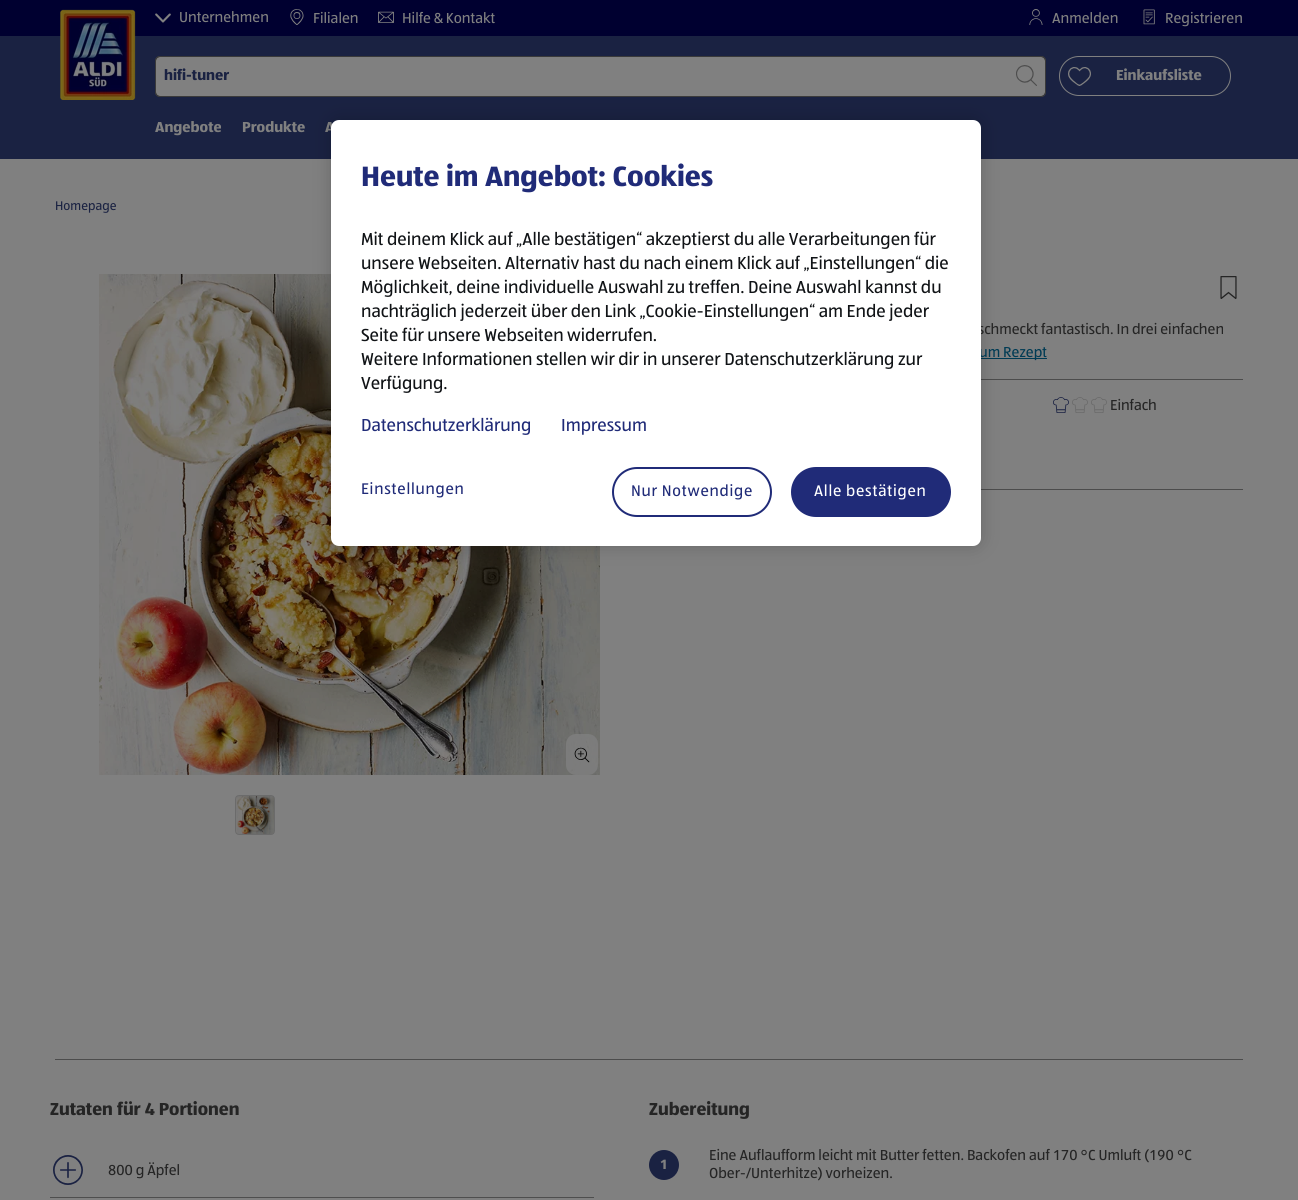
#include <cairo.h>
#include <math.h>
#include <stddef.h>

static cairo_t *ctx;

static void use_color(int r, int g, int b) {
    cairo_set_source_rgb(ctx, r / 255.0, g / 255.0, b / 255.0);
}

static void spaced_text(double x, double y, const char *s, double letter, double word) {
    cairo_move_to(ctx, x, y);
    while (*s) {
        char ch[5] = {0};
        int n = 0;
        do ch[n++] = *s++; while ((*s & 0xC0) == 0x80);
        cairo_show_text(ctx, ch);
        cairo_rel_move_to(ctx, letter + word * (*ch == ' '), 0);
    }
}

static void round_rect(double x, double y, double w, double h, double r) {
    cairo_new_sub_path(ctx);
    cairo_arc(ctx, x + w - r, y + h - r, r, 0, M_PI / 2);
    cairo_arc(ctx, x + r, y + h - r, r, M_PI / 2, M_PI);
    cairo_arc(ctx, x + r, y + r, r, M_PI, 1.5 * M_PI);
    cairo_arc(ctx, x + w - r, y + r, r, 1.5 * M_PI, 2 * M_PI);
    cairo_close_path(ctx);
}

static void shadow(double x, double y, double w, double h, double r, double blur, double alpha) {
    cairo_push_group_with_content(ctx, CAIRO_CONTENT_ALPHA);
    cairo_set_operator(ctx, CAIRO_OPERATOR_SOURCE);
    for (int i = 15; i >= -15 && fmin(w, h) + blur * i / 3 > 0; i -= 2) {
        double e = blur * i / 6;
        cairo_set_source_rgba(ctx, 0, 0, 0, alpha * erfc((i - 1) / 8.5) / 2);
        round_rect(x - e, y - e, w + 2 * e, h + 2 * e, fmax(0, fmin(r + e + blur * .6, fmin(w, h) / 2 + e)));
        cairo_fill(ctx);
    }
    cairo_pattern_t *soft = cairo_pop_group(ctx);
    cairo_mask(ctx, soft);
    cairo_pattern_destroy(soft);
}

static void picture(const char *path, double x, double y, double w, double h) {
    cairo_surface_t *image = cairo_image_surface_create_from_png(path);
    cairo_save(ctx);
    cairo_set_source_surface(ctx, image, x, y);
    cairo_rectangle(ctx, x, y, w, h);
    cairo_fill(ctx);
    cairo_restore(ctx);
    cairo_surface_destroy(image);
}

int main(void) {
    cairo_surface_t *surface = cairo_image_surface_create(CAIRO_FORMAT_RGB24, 1298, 1200);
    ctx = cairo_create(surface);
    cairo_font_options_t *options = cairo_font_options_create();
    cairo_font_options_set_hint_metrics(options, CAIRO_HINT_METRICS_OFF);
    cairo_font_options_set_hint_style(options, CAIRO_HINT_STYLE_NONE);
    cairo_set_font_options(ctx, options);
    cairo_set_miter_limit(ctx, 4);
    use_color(128, 128, 128);
    cairo_paint(ctx);
    use_color(0, 0, 48);
    cairo_rectangle(ctx, 0, 0, 1298, 36);
    cairo_fill(ctx);
    use_color(26, 34, 66);
    cairo_rectangle(ctx, 0, 36, 1298, 123);
    cairo_fill(ctx);
    picture("img1.png", 60, 9, 76, 91);
    picture("img2.png", 155, 13, 16, 10);
    cairo_select_font_face(ctx, "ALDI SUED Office", CAIRO_FONT_SLANT_NORMAL, CAIRO_FONT_WEIGHT_NORMAL);
    cairo_set_font_size(ctx, 15);
    use_color(128, 128, 128);
    cairo_move_to(ctx, 179, 22);
    cairo_show_text(ctx, "Unternehmen");
    picture("img3.png", 290, 9, 14, 16);
    cairo_move_to(ctx, 313, 23);
    cairo_show_text(ctx, "Filialen");
    picture("img4.png", 378, 11, 16, 12);
    cairo_move_to(ctx, 402, 23);
    cairo_show_text(ctx, "Hilfe & Kontakt");
    picture("img5.png", 1029, 9, 14, 16);
    cairo_move_to(ctx, 1052, 23);
    cairo_show_text(ctx, "Anmelden");
    picture("img6.png", 1143, 9, 12, 16);
    cairo_move_to(ctx, 1165, 23);
    cairo_show_text(ctx, "Registrieren");
    round_rect(155.5, 56.5, 890, 40, 4.5);
    cairo_fill_preserve(ctx);
    use_color(58, 58, 58);
    cairo_set_line_width(ctx, 1);
    cairo_stroke(ctx);
    round_rect(155.5, 56.5, 890, 40, 4.5);
    cairo_stroke(ctx);
    cairo_select_font_face(ctx, "ALDI SUED Office", CAIRO_FONT_SLANT_NORMAL, CAIRO_FONT_WEIGHT_BOLD);
    use_color(26, 34, 66);
    cairo_move_to(ctx, 164, 80);
    cairo_show_text(ctx, "hifi-tuner");
    picture("img7.png", 1016, 65, 21, 21);
    round_rect(1059.5, 56.5, 171, 39, 19.5);
    use_color(128, 128, 128);
    cairo_stroke(ctx);
    picture("img8.png", 1068, 67, 23, 19);
    cairo_move_to(ctx, 1116, 80);
    cairo_show_text(ctx, "Einkaufsliste");
    cairo_move_to(ctx, 155, 132);
    cairo_show_text(ctx, "Angebote");
    cairo_move_to(ctx, 242, 132);
    cairo_show_text(ctx, "Produkte");
    cairo_move_to(ctx, 325, 132);
    cairo_show_text(ctx, "A");
    picture("img9.png", 99, 274, 501, 501);
    use_color(0, 59, 84);
    cairo_rectangle(ctx, 981, 358, 66, 1);
    cairo_fill(ctx);
    use_color(76, 76, 76);
    cairo_rectangle(ctx, 981, 379, 262, 1);
    cairo_fill(ctx);
    cairo_rectangle(ctx, 981, 489, 262, 1);
    cairo_fill(ctx);
    use_color(0, 0, 0);
    shadow(331, 120, 650, 426, 8, 9, 0.2);
    cairo_select_font_face(ctx, "ALDI SUED Office", CAIRO_FONT_SLANT_NORMAL, CAIRO_FONT_WEIGHT_NORMAL);
    use_color(37, 37, 37);
    cairo_move_to(ctx, 978, 334);
    cairo_show_text(ctx, "schmeckt fantastisch. In drei einfachen");
    use_color(0, 59, 84);
    cairo_move_to(ctx, 979, 357);
    cairo_show_text(ctx, "um Rezept");
    use_color(255, 255, 255);
    round_rect(331, 120, 650, 426, 8);
    cairo_fill(ctx);
    cairo_select_font_face(ctx, "ALDI SUED Office", CAIRO_FONT_SLANT_NORMAL, CAIRO_FONT_WEIGHT_BOLD);
    cairo_set_font_size(ctx, 29);
    use_color(32, 43, 120);
    cairo_move_to(ctx, 361, 186);
    cairo_show_text(ctx, "Heute im Angebot: Cookies");
    cairo_select_font_face(ctx, "ALDI SUED Office", CAIRO_FONT_SLANT_NORMAL, CAIRO_FONT_WEIGHT_NORMAL);
    cairo_set_font_size(ctx, 18);
    use_color(16, 19, 22);
    cairo_move_to(ctx, 361, 245);
    cairo_show_text(ctx, "Mit deinem Klick auf „Alle bestätigen“ akzeptierst du alle Verarbeitungen für");
    cairo_move_to(ctx, 361, 269);
    cairo_show_text(ctx, "unsere Webseiten. Alternativ hast du nach einem Klick auf „Einstellungen“ die");
    cairo_move_to(ctx, 361, 293);
    cairo_show_text(ctx, "Möglichkeit, deine individuelle Auswahl zu treffen. Deine Auswahl kannst du");
    cairo_move_to(ctx, 361, 317);
    cairo_show_text(ctx, "nachträglich jederzeit über den Link „Cookie-Einstellungen“ am Ende jeder");
    cairo_move_to(ctx, 361, 341);
    cairo_show_text(ctx, "Seite für unsere Webseiten widerrufen.");
    cairo_move_to(ctx, 361, 365);
    cairo_show_text(ctx, "Weitere Informationen stellen wir dir in unserer Datenschutzerklärung zur");
    cairo_move_to(ctx, 361, 389);
    cairo_show_text(ctx, "Verfügung.");
    use_color(32, 43, 120);
    cairo_move_to(ctx, 361, 431);
    cairo_show_text(ctx, "Datenschutzerklärung");
    cairo_move_to(ctx, 561, 431);
    cairo_show_text(ctx, "Impressum");
    cairo_set_font_size(ctx, 16);
    spaced_text(361, 494, "Einstellungen", 0.75, 0);
    round_rect(613, 468, 158, 48, 24);
    cairo_set_line_width(ctx, 2);
    cairo_stroke(ctx);
    spaced_text(631, 496, "Nur Notwendige", 0.75, 0);
    round_rect(792, 468, 158, 48, 24);
    cairo_fill_preserve(ctx);
    cairo_stroke(ctx);
    use_color(255, 255, 255);
    spaced_text(814, 496, "Alle bestätigen", 0.75, 0);
    cairo_set_font_size(ctx, 13);
    use_color(26, 34, 66);
    cairo_move_to(ctx, 55, 210);
    cairo_show_text(ctx, "Homepage");
    cairo_set_source_rgba(ctx, 0.502, 0.502, 0.502, 0.8);
    round_rect(566, 734, 32, 41, 10);
    cairo_fill(ctx);
    picture("img10.png", 574, 747, 16, 16);
    picture("img11.png", 236, 796, 38, 38);
    round_rect(235.5, 795.5, 39, 39, 3.5);
    use_color(107, 107, 107);
    cairo_set_line_width(ctx, 1);
    cairo_stroke(ctx);
    picture("img12.png", 1220, 276, 17, 23);
    picture("img13.png", 1053, 397, 16, 16);
    picture("img14.png", 1072, 397, 16, 16);
    picture("img14.png", 1091, 397, 16, 16);
    cairo_set_font_size(ctx, 15);
    use_color(37, 37, 37);
    cairo_move_to(ctx, 1110, 410);
    cairo_show_text(ctx, "Einfach");
    use_color(76, 76, 76);
    cairo_rectangle(ctx, 55, 1059, 1188, 1);
    cairo_fill(ctx);
    cairo_select_font_face(ctx, "ALDI SUED Office", CAIRO_FONT_SLANT_NORMAL, CAIRO_FONT_WEIGHT_BOLD);
    cairo_set_font_size(ctx, 18);
    use_color(37, 37, 37);
    cairo_move_to(ctx, 50, 1115);
    cairo_show_text(ctx, "Zutaten für 4 Portionen");
    use_color(78, 78, 78);
    cairo_rectangle(ctx, 50, 1197, 544, 1);
    cairo_fill(ctx);
    picture("img15.png", 53, 1155, 30, 30);
    cairo_select_font_face(ctx, "ALDI SUED Office", CAIRO_FONT_SLANT_NORMAL, CAIRO_FONT_WEIGHT_NORMAL);
    cairo_set_font_size(ctx, 15);
    use_color(37, 37, 37);
    cairo_move_to(ctx, 108, 1175);
    cairo_show_text(ctx, "800 g Äpfel");
    cairo_select_font_face(ctx, "ALDI SUED Office", CAIRO_FONT_SLANT_NORMAL, CAIRO_FONT_WEIGHT_BOLD);
    cairo_set_font_size(ctx, 18);
    cairo_move_to(ctx, 649, 1115);
    cairo_show_text(ctx, "Zubereitung");
    use_color(26, 34, 66);
    cairo_new_path(ctx);
    cairo_arc(ctx, 664, 1165, 15, 0, 2 * M_PI);
    cairo_fill(ctx);
    cairo_set_font_size(ctx, 14);
    use_color(128, 128, 128);
    cairo_move_to(ctx, 660, 1169);
    cairo_show_text(ctx, "1");
    cairo_select_font_face(ctx, "ALDI SUED Office", CAIRO_FONT_SLANT_NORMAL, CAIRO_FONT_WEIGHT_NORMAL);
    cairo_set_font_size(ctx, 15);
    use_color(37, 37, 37);
    cairo_move_to(ctx, 709, 1160);
    cairo_show_text(ctx, "Eine Auflaufform leicht mit Butter fetten. Backofen auf 170 °C Umluft (190 °C");
    cairo_move_to(ctx, 709, 1178);
    cairo_show_text(ctx, "Ober-/Unterhitze) vorheizen.");
    cairo_surface_write_to_png(surface, "result.png");
    cairo_font_options_destroy(options);
    cairo_destroy(ctx);
    cairo_surface_destroy(surface);
    return 0;
}
